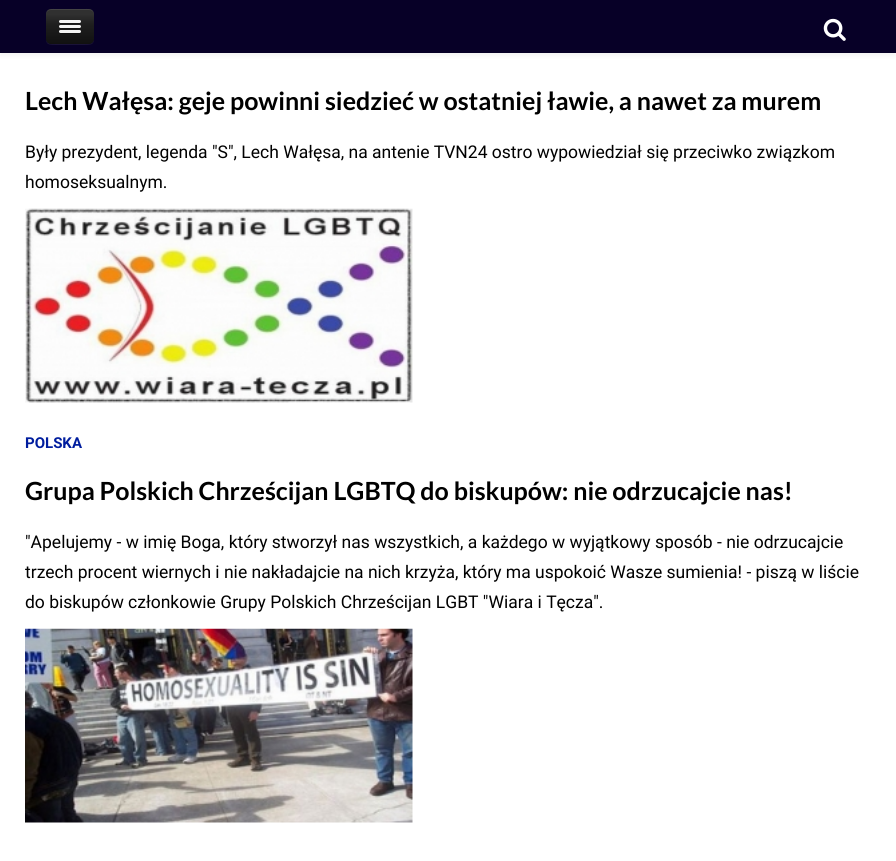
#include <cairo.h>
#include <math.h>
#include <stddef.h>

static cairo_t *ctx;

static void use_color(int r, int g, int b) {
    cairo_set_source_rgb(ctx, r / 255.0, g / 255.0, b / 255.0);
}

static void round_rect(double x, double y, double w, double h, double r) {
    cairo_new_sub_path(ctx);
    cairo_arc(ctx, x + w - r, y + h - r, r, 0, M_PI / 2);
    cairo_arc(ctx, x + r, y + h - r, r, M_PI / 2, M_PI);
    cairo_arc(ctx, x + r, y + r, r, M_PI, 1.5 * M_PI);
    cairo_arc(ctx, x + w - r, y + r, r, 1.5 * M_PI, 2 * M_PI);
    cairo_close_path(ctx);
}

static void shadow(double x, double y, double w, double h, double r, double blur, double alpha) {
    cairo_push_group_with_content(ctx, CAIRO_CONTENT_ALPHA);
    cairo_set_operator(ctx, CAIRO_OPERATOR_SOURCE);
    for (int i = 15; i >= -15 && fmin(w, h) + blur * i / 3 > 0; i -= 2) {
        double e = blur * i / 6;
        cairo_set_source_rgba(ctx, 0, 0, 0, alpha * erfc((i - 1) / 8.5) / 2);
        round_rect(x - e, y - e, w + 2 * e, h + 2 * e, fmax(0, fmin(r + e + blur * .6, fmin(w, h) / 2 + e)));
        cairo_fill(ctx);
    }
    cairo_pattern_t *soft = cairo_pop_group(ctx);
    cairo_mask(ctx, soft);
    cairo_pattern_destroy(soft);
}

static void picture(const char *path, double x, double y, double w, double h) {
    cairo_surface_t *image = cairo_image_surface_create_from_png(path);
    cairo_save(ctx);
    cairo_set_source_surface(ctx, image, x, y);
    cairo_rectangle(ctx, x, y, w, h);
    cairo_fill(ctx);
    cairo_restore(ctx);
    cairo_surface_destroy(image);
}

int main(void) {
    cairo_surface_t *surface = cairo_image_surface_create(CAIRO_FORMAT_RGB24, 896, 861);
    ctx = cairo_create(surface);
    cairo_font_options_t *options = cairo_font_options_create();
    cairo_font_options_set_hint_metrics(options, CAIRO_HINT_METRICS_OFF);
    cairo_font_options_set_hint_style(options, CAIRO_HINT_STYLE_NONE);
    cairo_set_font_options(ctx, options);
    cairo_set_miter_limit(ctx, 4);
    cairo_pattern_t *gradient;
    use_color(255, 255, 255);
    cairo_paint(ctx);
    use_color(0, 0, 0);
    shadow(0, 4, 896, 52, 0, 2, 0.05);
    use_color(7, 0, 39);
    cairo_rectangle(ctx, 0, 0, 896, 53);
    cairo_fill(ctx);
    use_color(26, 19, 55);
    cairo_new_path(ctx);
    cairo_move_to(ctx, 46, 13);
    cairo_line_to(ctx, 46, 32);
    cairo_curve_to(ctx, 46, 44, 45, 45, 57, 45);
    cairo_line_to(ctx, 83, 45);
    cairo_curve_to(ctx, 95, 45, 94, 44, 94, 32);
    cairo_line_to(ctx, 94, 13);
    cairo_line_to(ctx, 94, 35);
    cairo_curve_to(ctx, 94, 44, 92, 44, 82, 44);
    cairo_line_to(ctx, 58, 44);
    cairo_curve_to(ctx, 48, 44, 46, 44, 46, 35);
    cairo_close_path(ctx);
    cairo_fill(ctx);
    gradient = cairo_pattern_create_linear(70, 44, 70, 9);
    cairo_pattern_add_color_stop_rgba(gradient, 0.01, 0.067, 0.067, 0.067, 1);
    cairo_pattern_add_color_stop_rgba(gradient, 0.57, 0.122, 0.122, 0.122, 1);
    cairo_pattern_add_color_stop_rgba(gradient, 0.85, 0.188, 0.188, 0.188, 1);
    cairo_set_source(ctx, gradient);
    cairo_pattern_destroy(gradient);
    round_rect(46, 9, 48, 35, 5);
    cairo_fill(ctx);
    cairo_set_source_rgba(ctx, 1, 1, 1, 0.1);
    cairo_new_path(ctx);
    cairo_move_to(ctx, 51, 10);
    cairo_line_to(ctx, 89, 10);
    cairo_curve_to(ctx, 92, 10, 94, 12, 94, 15);
    cairo_curve_to(ctx, 94, 8, 88, 9, 83, 9);
    cairo_line_to(ctx, 57, 9);
    cairo_curve_to(ctx, 52, 9, 46, 8, 46, 15);
    cairo_curve_to(ctx, 46, 12, 48, 10, 51, 10);
    cairo_close_path(ctx);
    cairo_fill(ctx);
    use_color(24, 24, 24);
    cairo_new_path(ctx);
    cairo_move_to(ctx, 59, 22);
    cairo_curve_to(ctx, 58.5, 24.5, 63, 24, 63.5, 24);
    cairo_line_to(ctx, 76.5, 24);
    cairo_curve_to(ctx, 77, 24, 81.5, 24.5, 81, 22);
    cairo_curve_to(ctx, 80, 23, 60, 23, 59, 22);
    cairo_close_path(ctx);
    cairo_fill(ctx);
    use_color(245, 245, 245);
    round_rect(59, 20, 22, 3, 1.5);
    cairo_fill(ctx);
    use_color(21, 21, 21);
    cairo_new_path(ctx);
    cairo_move_to(ctx, 59, 27);
    cairo_curve_to(ctx, 58.5, 29.5, 63, 29, 63.5, 29);
    cairo_line_to(ctx, 76.5, 29);
    cairo_curve_to(ctx, 77, 29, 81.5, 29.5, 81, 27);
    cairo_curve_to(ctx, 80, 28, 60, 28, 59, 27);
    cairo_close_path(ctx);
    cairo_fill(ctx);
    use_color(245, 245, 245);
    round_rect(59, 25, 22, 3, 1.5);
    cairo_fill(ctx);
    use_color(18, 18, 18);
    cairo_new_path(ctx);
    cairo_move_to(ctx, 59, 32);
    cairo_curve_to(ctx, 58.5, 34.5, 63, 34, 63.5, 34);
    cairo_line_to(ctx, 76.5, 34);
    cairo_curve_to(ctx, 77, 34, 81.5, 34.5, 81, 32);
    cairo_curve_to(ctx, 80, 33, 60, 33, 59, 32);
    cairo_close_path(ctx);
    cairo_fill(ctx);
    use_color(245, 245, 245);
    round_rect(59, 30, 22, 3, 1.5);
    cairo_fill(ctx);
    picture("img1.png", 823, 18, 23, 23);
    cairo_select_font_face(ctx, "Lato", CAIRO_FONT_SLANT_NORMAL, CAIRO_FONT_WEIGHT_BOLD);
    cairo_set_font_size(ctx, 25);
    use_color(0, 0, 0);
    cairo_move_to(ctx, 25, 110);
    cairo_show_text(ctx, "Lech Wałęsa: geje powinni siedzieć w ostatniej ławie, a nawet za murem");
    cairo_select_font_face(ctx, "Roboto", CAIRO_FONT_SLANT_NORMAL, CAIRO_FONT_WEIGHT_NORMAL);
    cairo_set_font_size(ctx, 17.5);
    cairo_move_to(ctx, 25, 158);
    cairo_show_text(ctx, "Były prezydent, legenda \"S\", Lech Wałęsa, na antenie TVN24 ostro wypowiedział się przeciwko związkom");
    cairo_move_to(ctx, 25, 188);
    cairo_show_text(ctx, "homoseksualnym.");
    picture("img2.png", 25, 208, 388, 195);
    cairo_select_font_face(ctx, "Roboto", CAIRO_FONT_SLANT_NORMAL, CAIRO_FONT_WEIGHT_BOLD);
    cairo_set_font_size(ctx, 15);
    use_color(0, 29, 158);
    cairo_move_to(ctx, 25, 448);
    cairo_show_text(ctx, "POLSKA");
    cairo_select_font_face(ctx, "Lato", CAIRO_FONT_SLANT_NORMAL, CAIRO_FONT_WEIGHT_BOLD);
    cairo_set_font_size(ctx, 25);
    use_color(0, 0, 0);
    cairo_move_to(ctx, 25, 500);
    cairo_show_text(ctx, "Grupa Polskich Chrześcijan LGBTQ do biskupów: nie odrzucajcie nas!");
    cairo_select_font_face(ctx, "Roboto", CAIRO_FONT_SLANT_NORMAL, CAIRO_FONT_WEIGHT_NORMAL);
    cairo_set_font_size(ctx, 17.5);
    cairo_move_to(ctx, 25, 548);
    cairo_show_text(ctx, "\"Apelujemy - w imię Boga, który stworzył nas wszystkich, a każdego w wyjątkowy sposób - nie odrzucajcie");
    cairo_move_to(ctx, 25, 578);
    cairo_show_text(ctx, "trzech procent wiernych i nie nakładajcie na nich krzyża, który ma uspokoić Wasze sumienia! - piszą w liście");
    cairo_move_to(ctx, 25, 608);
    cairo_show_text(ctx, "do biskupów członkowie Grupy Polskich Chrześcijan LGBT \"Wiara i Tęcza\".");
    picture("img3.png", 25, 628, 388, 195);
    cairo_surface_write_to_png(surface, "result.png");
    cairo_font_options_destroy(options);
    cairo_destroy(ctx);
    cairo_surface_destroy(surface);
    return 0;
}
